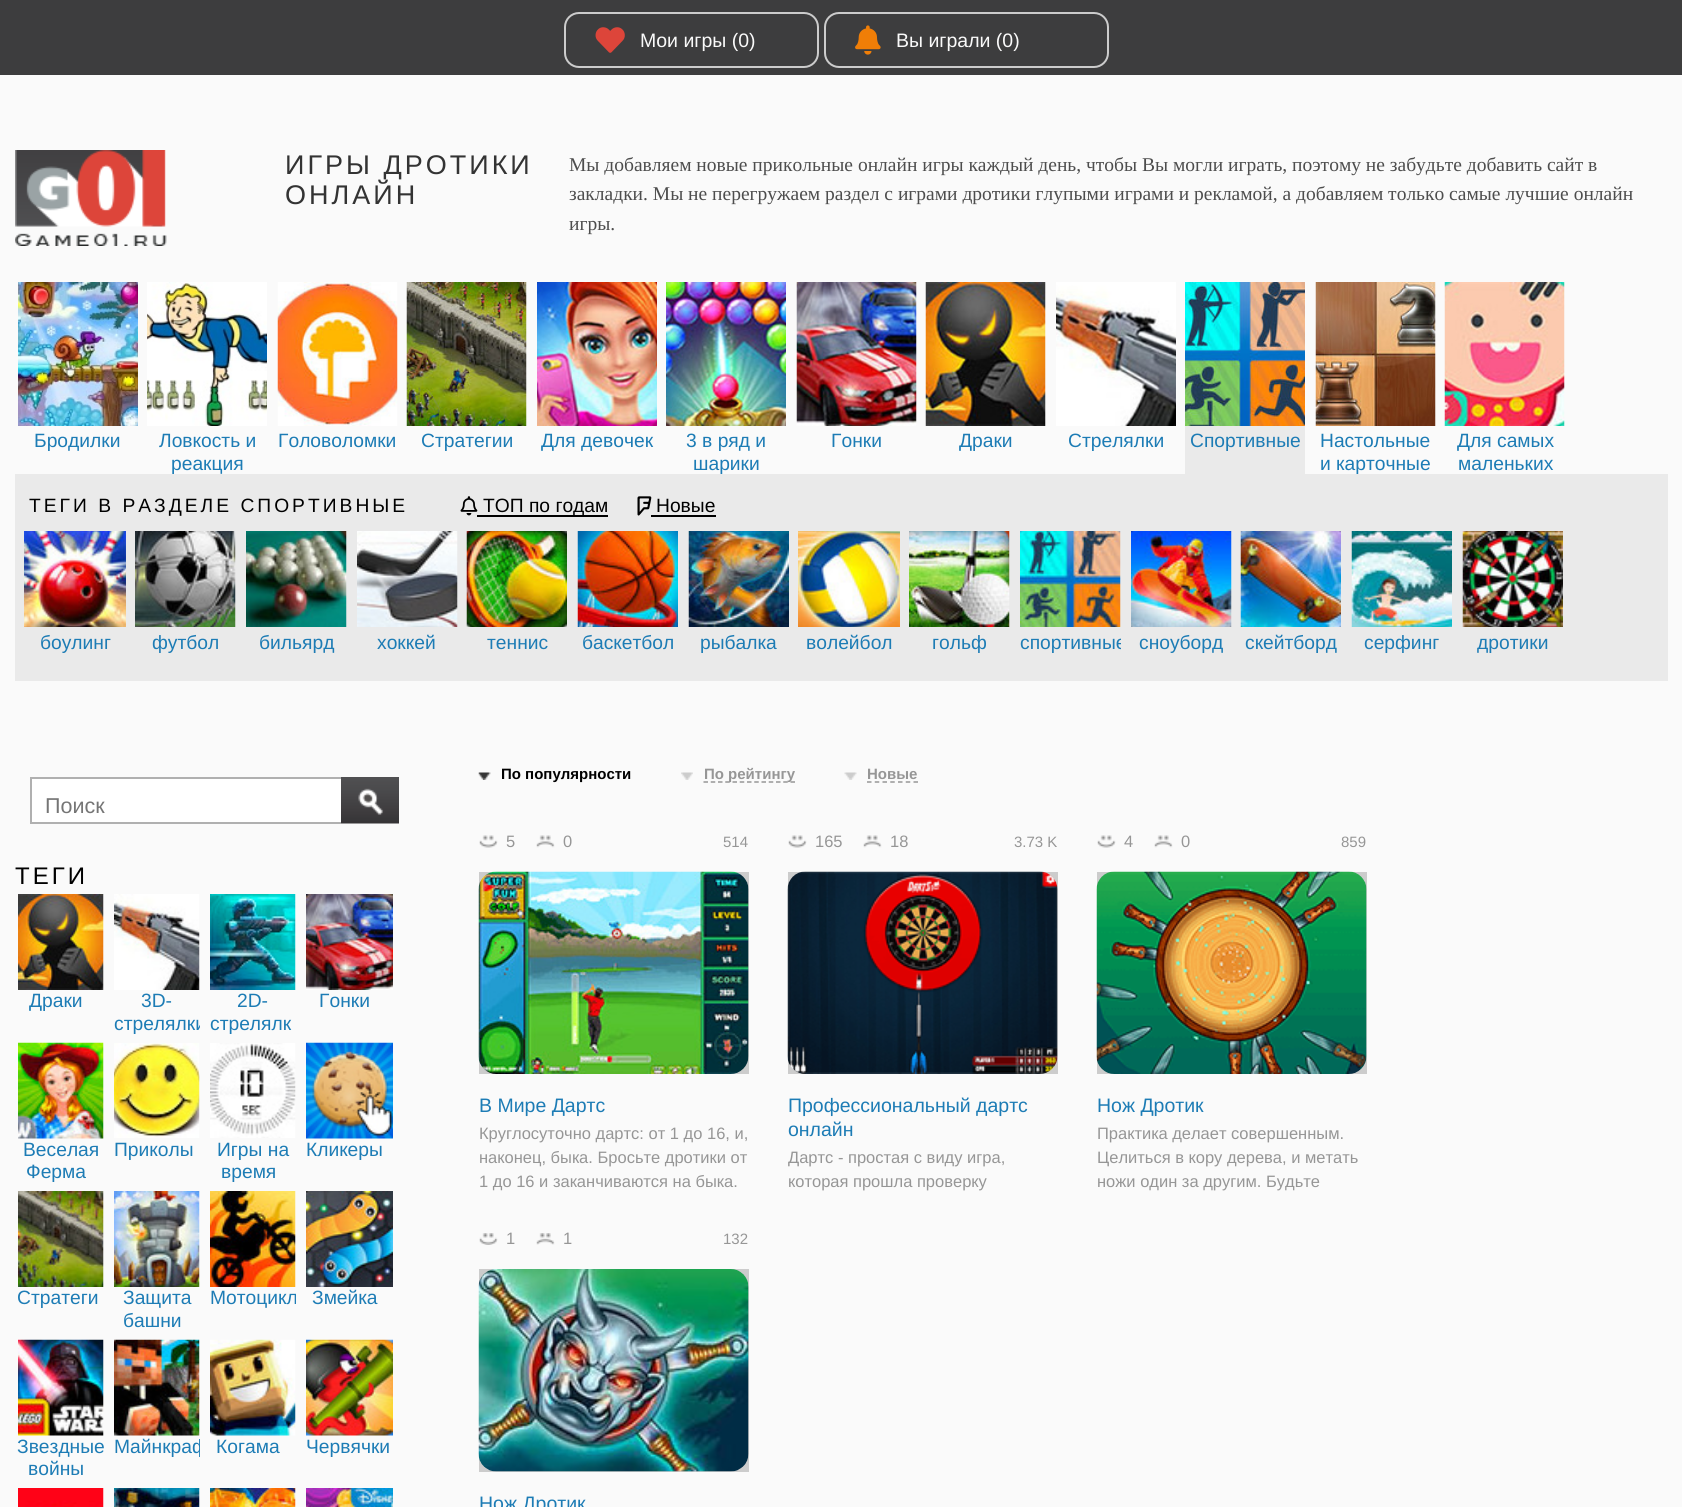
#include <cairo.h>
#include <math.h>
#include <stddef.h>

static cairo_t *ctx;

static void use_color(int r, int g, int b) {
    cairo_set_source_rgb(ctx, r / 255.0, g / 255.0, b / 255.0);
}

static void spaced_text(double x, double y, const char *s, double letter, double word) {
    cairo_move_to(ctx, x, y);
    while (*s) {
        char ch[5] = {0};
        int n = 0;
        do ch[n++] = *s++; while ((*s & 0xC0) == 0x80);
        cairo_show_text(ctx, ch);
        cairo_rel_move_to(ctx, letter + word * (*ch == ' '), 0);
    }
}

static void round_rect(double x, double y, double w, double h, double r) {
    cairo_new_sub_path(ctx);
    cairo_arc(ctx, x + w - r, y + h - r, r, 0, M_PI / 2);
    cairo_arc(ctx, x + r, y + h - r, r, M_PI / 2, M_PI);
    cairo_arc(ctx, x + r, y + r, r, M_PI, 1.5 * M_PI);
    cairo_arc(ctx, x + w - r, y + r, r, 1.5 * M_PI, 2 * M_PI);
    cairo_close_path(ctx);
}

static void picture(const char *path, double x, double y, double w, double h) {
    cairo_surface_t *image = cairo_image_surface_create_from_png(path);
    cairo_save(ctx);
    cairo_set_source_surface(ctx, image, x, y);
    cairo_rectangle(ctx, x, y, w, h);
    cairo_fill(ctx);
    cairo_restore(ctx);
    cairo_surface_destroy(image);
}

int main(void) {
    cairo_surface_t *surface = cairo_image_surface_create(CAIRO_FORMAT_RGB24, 1682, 1507);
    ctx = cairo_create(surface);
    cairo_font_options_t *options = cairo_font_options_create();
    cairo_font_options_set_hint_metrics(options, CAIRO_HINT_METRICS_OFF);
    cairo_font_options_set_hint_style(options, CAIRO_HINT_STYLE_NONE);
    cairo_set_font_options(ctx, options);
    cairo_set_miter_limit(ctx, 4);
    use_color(250, 250, 250);
    cairo_paint(ctx);
    use_color(61, 61, 62);
    cairo_rectangle(ctx, 0, 0, 1682, 75);
    cairo_fill(ctx);
    round_rect(565, 13, 253, 54, 14);
    use_color(204, 204, 204);
    cairo_stroke(ctx);
    picture("img1.png", 595, 27, 30, 26);
    cairo_select_font_face(ctx, "Liberation Sans", CAIRO_FONT_SLANT_NORMAL, CAIRO_FONT_WEIGHT_NORMAL);
    cairo_set_font_size(ctx, 19.5);
    use_color(250, 250, 250);
    cairo_move_to(ctx, 640, 47);
    cairo_show_text(ctx, "Мои игры (0)");
    round_rect(825, 13, 283, 54, 14);
    use_color(204, 204, 204);
    cairo_stroke(ctx);
    picture("img2.png", 855, 25, 26, 30);
    use_color(250, 250, 250);
    cairo_move_to(ctx, 896, 47);
    cairo_show_text(ctx, "Вы играли (0)");
    picture("img3.png", 15, 150, 152, 96);
    cairo_set_font_size(ctx, 27);
    use_color(51, 51, 51);
    spaced_text(285, 174, "ИГРЫ ДРОТИКИ", 3, 0);
    spaced_text(285, 204, "ОНЛАЙН", 3, 0);
    cairo_select_font_face(ctx, "Liberation Serif", CAIRO_FONT_SLANT_NORMAL, CAIRO_FONT_WEIGHT_NORMAL);
    cairo_set_font_size(ctx, 19.5);
    use_color(77, 77, 77);
    cairo_move_to(ctx, 569, 171);
    cairo_show_text(ctx, "Мы добавляем новые прикольные онлайн игры каждый день, чтобы Вы могли играть, поэтому не забудьте добавить сайт в");
    cairo_move_to(ctx, 569, 200);
    cairo_show_text(ctx, "закладки. Мы не перегружаем раздел с играми дротики глупыми играми и рекламой, а добавляем только самые лучшие онлайн");
    cairo_move_to(ctx, 569, 230);
    cairo_show_text(ctx, "игры.");
    picture("img4.png", 18, 282, 120, 144);
    cairo_select_font_face(ctx, "Liberation Sans", CAIRO_FONT_SLANT_NORMAL, CAIRO_FONT_WEIGHT_NORMAL);
    cairo_set_font_size(ctx, 19.25);
    use_color(29, 124, 181);
    cairo_move_to(ctx, 34, 447);
    cairo_show_text(ctx, "Бродилки");
    picture("img5.png", 147, 282, 120, 144);
    cairo_move_to(ctx, 159, 447);
    cairo_show_text(ctx, "Ловкость и");
    cairo_move_to(ctx, 171, 470);
    cairo_show_text(ctx, "реакция");
    picture("img6.png", 277, 282, 121, 144);
    cairo_move_to(ctx, 278, 447);
    cairo_show_text(ctx, "Головоломки");
    picture("img7.png", 406, 282, 121, 144);
    cairo_move_to(ctx, 421, 447);
    cairo_show_text(ctx, "Стратегии");
    picture("img8.png", 537, 282, 120, 144);
    cairo_move_to(ctx, 541, 447);
    cairo_show_text(ctx, "Для девочек");
    picture("img9.png", 666, 282, 120, 144);
    cairo_move_to(ctx, 686, 447);
    cairo_show_text(ctx, "3 в ряд и");
    cairo_move_to(ctx, 693, 470);
    cairo_show_text(ctx, "шарики");
    picture("img10.png", 796, 282, 121, 144);
    cairo_move_to(ctx, 831, 447);
    cairo_show_text(ctx, "Гонки");
    picture("img11.png", 925, 282, 121, 144);
    cairo_move_to(ctx, 959, 447);
    cairo_show_text(ctx, "Драки");
    picture("img12.png", 1056, 282, 120, 144);
    cairo_move_to(ctx, 1068, 447);
    cairo_show_text(ctx, "Стрелялки");
    use_color(234, 234, 234);
    cairo_rectangle(ctx, 1185, 426, 120, 48);
    cairo_fill(ctx);
    picture("img13.png", 1185, 282, 120, 144);
    use_color(29, 124, 181);
    cairo_move_to(ctx, 1190, 447);
    cairo_show_text(ctx, "Спортивные");
    picture("img14.png", 1315, 282, 121, 144);
    cairo_move_to(ctx, 1320, 447);
    cairo_show_text(ctx, "Настольные");
    cairo_move_to(ctx, 1320, 470);
    cairo_show_text(ctx, "и карточные");
    picture("img15.png", 1444, 282, 121, 144);
    cairo_move_to(ctx, 1457, 447);
    cairo_show_text(ctx, "Для самых");
    cairo_move_to(ctx, 1458, 470);
    cairo_show_text(ctx, "маленьких");
    use_color(234, 234, 234);
    cairo_rectangle(ctx, 15, 474, 1653, 207);
    cairo_fill(ctx);
    use_color(0, 0, 0);
    spaced_text(29, 512, "ТЕГИ В РАЗДЕЛЕ СПОРТИВНЫЕ", 3, 0);
    picture("img16.png", 460, 496, 18, 20);
    cairo_rectangle(ctx, 477, 515, 131, 2);
    cairo_fill(ctx);
    cairo_move_to(ctx, 483, 512);
    cairo_show_text(ctx, "ТОП по годам");
    picture("img17.png", 637, 496, 15, 20);
    cairo_move_to(ctx, 656, 512);
    cairo_show_text(ctx, "Новые");
    cairo_rectangle(ctx, 651, 515, 65, 2);
    cairo_fill(ctx);
    picture("img18.png", 24, 531, 102, 96);
    use_color(29, 124, 181);
    cairo_move_to(ctx, 40, 649);
    cairo_show_text(ctx, "боулинг");
    picture("img19.png", 135, 531, 101, 96);
    cairo_move_to(ctx, 152, 649);
    cairo_show_text(ctx, "футбол");
    picture("img20.png", 246, 531, 101, 96);
    cairo_move_to(ctx, 259, 649);
    cairo_show_text(ctx, "бильярд");
    picture("img21.png", 357, 531, 101, 96);
    cairo_move_to(ctx, 377, 649);
    cairo_show_text(ctx, "хоккей");
    picture("img22.png", 466, 531, 101, 96);
    cairo_move_to(ctx, 487, 649);
    cairo_show_text(ctx, "теннис");
    picture("img23.png", 577, 531, 101, 96);
    cairo_move_to(ctx, 582, 649);
    cairo_show_text(ctx, "баскетбол");
    picture("img24.png", 688, 531, 101, 96);
    cairo_move_to(ctx, 700, 649);
    cairo_show_text(ctx, "рыбалка");
    picture("img25.png", 798, 531, 102, 96);
    cairo_move_to(ctx, 806, 649);
    cairo_show_text(ctx, "волейбол");
    picture("img26.png", 909, 531, 101, 96);
    cairo_move_to(ctx, 932, 649);
    cairo_show_text(ctx, "гольф");
    picture("img27.png", 1020, 531, 101, 96);
    cairo_save(ctx);
    cairo_rectangle(ctx, 1020, 531, 101, 150);
    cairo_clip(ctx);
    cairo_move_to(ctx, 1020, 649);
    cairo_show_text(ctx, "спортивные");
    cairo_restore(ctx);
    picture("img28.png", 1131, 531, 101, 96);
    cairo_move_to(ctx, 1139, 649);
    cairo_show_text(ctx, "сноуборд");
    picture("img29.png", 1240, 531, 101, 96);
    cairo_move_to(ctx, 1245, 649);
    cairo_show_text(ctx, "скейтборд");
    picture("img30.png", 1351, 531, 101, 96);
    cairo_move_to(ctx, 1364, 649);
    cairo_show_text(ctx, "серфинг");
    picture("img31.png", 1462, 531, 101, 96);
    cairo_move_to(ctx, 1477, 649);
    cairo_show_text(ctx, "дротики");
    use_color(255, 255, 255);
    cairo_rectangle(ctx, 32, 779, 309, 43);
    cairo_fill(ctx);
    use_color(176, 176, 176);
    cairo_rectangle(ctx, 30, 777, 311, 2);
    cairo_fill(ctx);
    cairo_rectangle(ctx, 30, 822, 311, 2);
    cairo_fill(ctx);
    cairo_rectangle(ctx, 30, 777, 2, 47);
    cairo_fill(ctx);
    cairo_set_font_size(ctx, 21.5);
    use_color(117, 117, 117);
    cairo_move_to(ctx, 45, 813);
    cairo_show_text(ctx, "Поиск");
    picture("img32.png", 341, 777, 58, 47);
    cairo_set_font_size(ctx, 24);
    use_color(0, 0, 0);
    spaced_text(15, 884, "ТЕГИ", 3, 0);
    picture("img33.png", 18, 894, 86, 96);
    cairo_set_font_size(ctx, 19.25);
    use_color(29, 124, 181);
    cairo_move_to(ctx, 29, 1007);
    cairo_show_text(ctx, "Драки");
    picture("img34.png", 114, 894, 86, 96);
    cairo_move_to(ctx, 141, 1007);
    cairo_show_text(ctx, "3D-");
    cairo_save(ctx);
    cairo_rectangle(ctx, 114, 894, 86, 144);
    cairo_clip(ctx);
    cairo_move_to(ctx, 114, 1030);
    cairo_show_text(ctx, "стрелялки");
    cairo_restore(ctx);
    picture("img35.png", 210, 894, 86, 96);
    cairo_move_to(ctx, 237, 1007);
    cairo_show_text(ctx, "2D-");
    cairo_move_to(ctx, 210, 1030);
    cairo_show_text(ctx, "стрелялк");
    picture("img36.png", 306, 894, 87, 96);
    cairo_move_to(ctx, 319, 1007);
    cairo_show_text(ctx, "Гонки");
    picture("img37.png", 18, 1042, 86, 97);
    cairo_move_to(ctx, 23, 1156);
    cairo_show_text(ctx, "Веселая");
    cairo_move_to(ctx, 26, 1178);
    cairo_show_text(ctx, "Ферма");
    picture("img38.png", 114, 1043, 86, 95);
    cairo_move_to(ctx, 114, 1156);
    cairo_show_text(ctx, "Приколы");
    picture("img39.png", 210, 1043, 86, 95);
    cairo_move_to(ctx, 217, 1156);
    cairo_show_text(ctx, "Игры на");
    cairo_move_to(ctx, 221, 1178);
    cairo_show_text(ctx, "время");
    picture("img40.png", 306, 1042, 87, 97);
    cairo_move_to(ctx, 306, 1156);
    cairo_show_text(ctx, "Кликеры");
    picture("img41.png", 18, 1191, 86, 96);
    cairo_move_to(ctx, 17, 1304);
    cairo_show_text(ctx, "Стратеги");
    picture("img42.png", 114, 1191, 86, 96);
    cairo_move_to(ctx, 123, 1304);
    cairo_show_text(ctx, "Защита");
    cairo_move_to(ctx, 123, 1327);
    cairo_show_text(ctx, "башни");
    picture("img43.png", 210, 1191, 86, 96);
    cairo_move_to(ctx, 210, 1304);
    cairo_show_text(ctx, "Мотоцикл");
    picture("img44.png", 306, 1191, 87, 96);
    cairo_move_to(ctx, 312, 1304);
    cairo_show_text(ctx, "Змейка");
    picture("img45.png", 18, 1339, 86, 97);
    cairo_move_to(ctx, 17, 1453);
    cairo_show_text(ctx, "Звездные");
    cairo_move_to(ctx, 28, 1475);
    cairo_show_text(ctx, "войны");
    picture("img46.png", 114, 1339, 86, 97);
    cairo_save(ctx);
    cairo_rectangle(ctx, 114, 1340, 86, 144);
    cairo_clip(ctx);
    cairo_move_to(ctx, 114, 1453);
    cairo_show_text(ctx, "Майнкраф");
    cairo_restore(ctx);
    picture("img47.png", 210, 1339, 86, 97);
    cairo_move_to(ctx, 216, 1453);
    cairo_show_text(ctx, "Когама");
    picture("img48.png", 306, 1339, 87, 97);
    cairo_move_to(ctx, 306, 1453);
    cairo_show_text(ctx, "Червячки");
    picture("img49.png", 18, 1488, 86, 19);
    picture("img50.png", 114, 1488, 86, 19);
    picture("img51.png", 210, 1488, 86, 19);
    picture("img52.png", 306, 1488, 87, 19);
    picture("img53.png", 478, 772, 13, 8);
    cairo_select_font_face(ctx, "Liberation Sans", CAIRO_FONT_SLANT_NORMAL, CAIRO_FONT_WEIGHT_BOLD);
    cairo_set_font_size(ctx, 15);
    use_color(0, 0, 0);
    cairo_move_to(ctx, 501, 779);
    cairo_show_text(ctx, "По популярности");
    picture("img54.png", 681, 772, 12, 8);
    cairo_new_path(ctx);
    cairo_move_to(ctx, 703.5, 782);
    cairo_line_to(ctx, 795, 782);
    use_color(150, 150, 150);
    cairo_set_line_width(ctx, 1.5);
    cairo_set_dash(ctx, (double[]){4.5, 2.75}, 2, 0);
    cairo_stroke(ctx);
    cairo_move_to(ctx, 704, 779);
    cairo_show_text(ctx, "По рейтингу");
    picture("img55.png", 844, 772, 13, 8);
    cairo_new_path(ctx);
    cairo_move_to(ctx, 867, 782);
    cairo_line_to(ctx, 918, 782);
    cairo_set_dash(ctx, (double[]){4.5, 3.25}, 2, 0);
    cairo_stroke(ctx);
    cairo_move_to(ctx, 867, 779);
    cairo_show_text(ctx, "Новые");
    picture("img56.png", 479, 835, 19, 13);
    cairo_select_font_face(ctx, "Liberation Sans", CAIRO_FONT_SLANT_NORMAL, CAIRO_FONT_WEIGHT_NORMAL);
    cairo_set_font_size(ctx, 16.5);
    cairo_move_to(ctx, 506, 847);
    cairo_show_text(ctx, "5");
    picture("img57.png", 536, 835, 19, 13);
    cairo_move_to(ctx, 563, 847);
    cairo_show_text(ctx, "0");
    cairo_set_font_size(ctx, 15);
    cairo_move_to(ctx, 723, 847);
    cairo_show_text(ctx, "514");
    use_color(204, 204, 204);
    cairo_rectangle(ctx, 479, 872, 270, 202);
    cairo_fill(ctx);
    picture("img58.png", 478, 871, 271, 203);
    cairo_set_font_size(ctx, 19.5);
    use_color(29, 124, 181);
    cairo_move_to(ctx, 479, 1112);
    cairo_show_text(ctx, "В Мире Дартс");
    cairo_set_font_size(ctx, 16.5);
    use_color(150, 150, 150);
    cairo_move_to(ctx, 479, 1139);
    cairo_show_text(ctx, "Круглосуточно дартс: от 1 до 16, и,");
    cairo_move_to(ctx, 479, 1163);
    cairo_show_text(ctx, "наконец, быка. Бросьте дротики от");
    cairo_move_to(ctx, 479, 1187);
    cairo_show_text(ctx, "1 до 16 и заканчиваются на быка.");
    picture("img56.png", 788, 835, 19, 13);
    cairo_move_to(ctx, 815, 847);
    cairo_show_text(ctx, "165");
    picture("img59.png", 863, 835, 19, 13);
    cairo_move_to(ctx, 890, 847);
    cairo_show_text(ctx, "18");
    cairo_set_font_size(ctx, 15);
    cairo_move_to(ctx, 1014, 847);
    cairo_show_text(ctx, "3.73 K");
    use_color(204, 204, 204);
    cairo_rectangle(ctx, 788, 872, 270, 202);
    cairo_fill(ctx);
    picture("img60.png", 787, 871, 271, 203);
    cairo_set_font_size(ctx, 19.5);
    use_color(29, 124, 181);
    cairo_move_to(ctx, 788, 1112);
    cairo_show_text(ctx, "Профессиональный дартс");
    cairo_move_to(ctx, 788, 1136);
    cairo_show_text(ctx, "онлайн");
    cairo_save(ctx);
    cairo_rectangle(ctx, 788, 1074, 270, 122);
    cairo_clip(ctx);
    cairo_set_font_size(ctx, 16.5);
    use_color(150, 150, 150);
    cairo_move_to(ctx, 788, 1163);
    cairo_show_text(ctx, "Дартс - простая с виду игра,");
    cairo_restore(ctx);
    cairo_set_font_size(ctx, 16.5);
    use_color(150, 150, 150);
    cairo_move_to(ctx, 788, 1187);
    cairo_show_text(ctx, "которая прошла проверку");
    picture("img56.png", 1097, 835, 19, 13);
    cairo_move_to(ctx, 1124, 847);
    cairo_show_text(ctx, "4");
    picture("img57.png", 1154, 835, 19, 13);
    cairo_move_to(ctx, 1181, 847);
    cairo_show_text(ctx, "0");
    cairo_set_font_size(ctx, 15);
    cairo_move_to(ctx, 1341, 847);
    cairo_show_text(ctx, "859");
    use_color(204, 204, 204);
    cairo_rectangle(ctx, 1097, 872, 270, 202);
    cairo_fill(ctx);
    picture("img61.png", 1096, 871, 271, 203);
    cairo_set_font_size(ctx, 19.5);
    use_color(29, 124, 181);
    cairo_move_to(ctx, 1097, 1112);
    cairo_show_text(ctx, "Нож Дротик");
    cairo_set_font_size(ctx, 16.5);
    use_color(150, 150, 150);
    cairo_move_to(ctx, 1097, 1139);
    cairo_show_text(ctx, "Практика делает совершенным.");
    cairo_move_to(ctx, 1097, 1163);
    cairo_show_text(ctx, "Целиться в кору дерева, и метать");
    cairo_move_to(ctx, 1097, 1187);
    cairo_show_text(ctx, "ножи один за другим. Будьте");
    picture("img62.png", 479, 1233, 19, 12);
    cairo_move_to(ctx, 506, 1244);
    cairo_show_text(ctx, "1");
    picture("img63.png", 536, 1233, 19, 12);
    cairo_move_to(ctx, 563, 1244);
    cairo_show_text(ctx, "1");
    cairo_set_font_size(ctx, 15);
    cairo_move_to(ctx, 723, 1244);
    cairo_show_text(ctx, "132");
    use_color(204, 204, 204);
    cairo_rectangle(ctx, 479, 1269, 270, 203);
    cairo_fill(ctx);
    picture("img64.png", 478, 1269, 271, 203);
    cairo_set_font_size(ctx, 19.5);
    use_color(29, 124, 181);
    cairo_move_to(ctx, 479, 1510);
    cairo_show_text(ctx, "Нож Дротик");
    cairo_surface_write_to_png(surface, "result.png");
    cairo_font_options_destroy(options);
    cairo_destroy(ctx);
    cairo_surface_destroy(surface);
    return 0;
}
